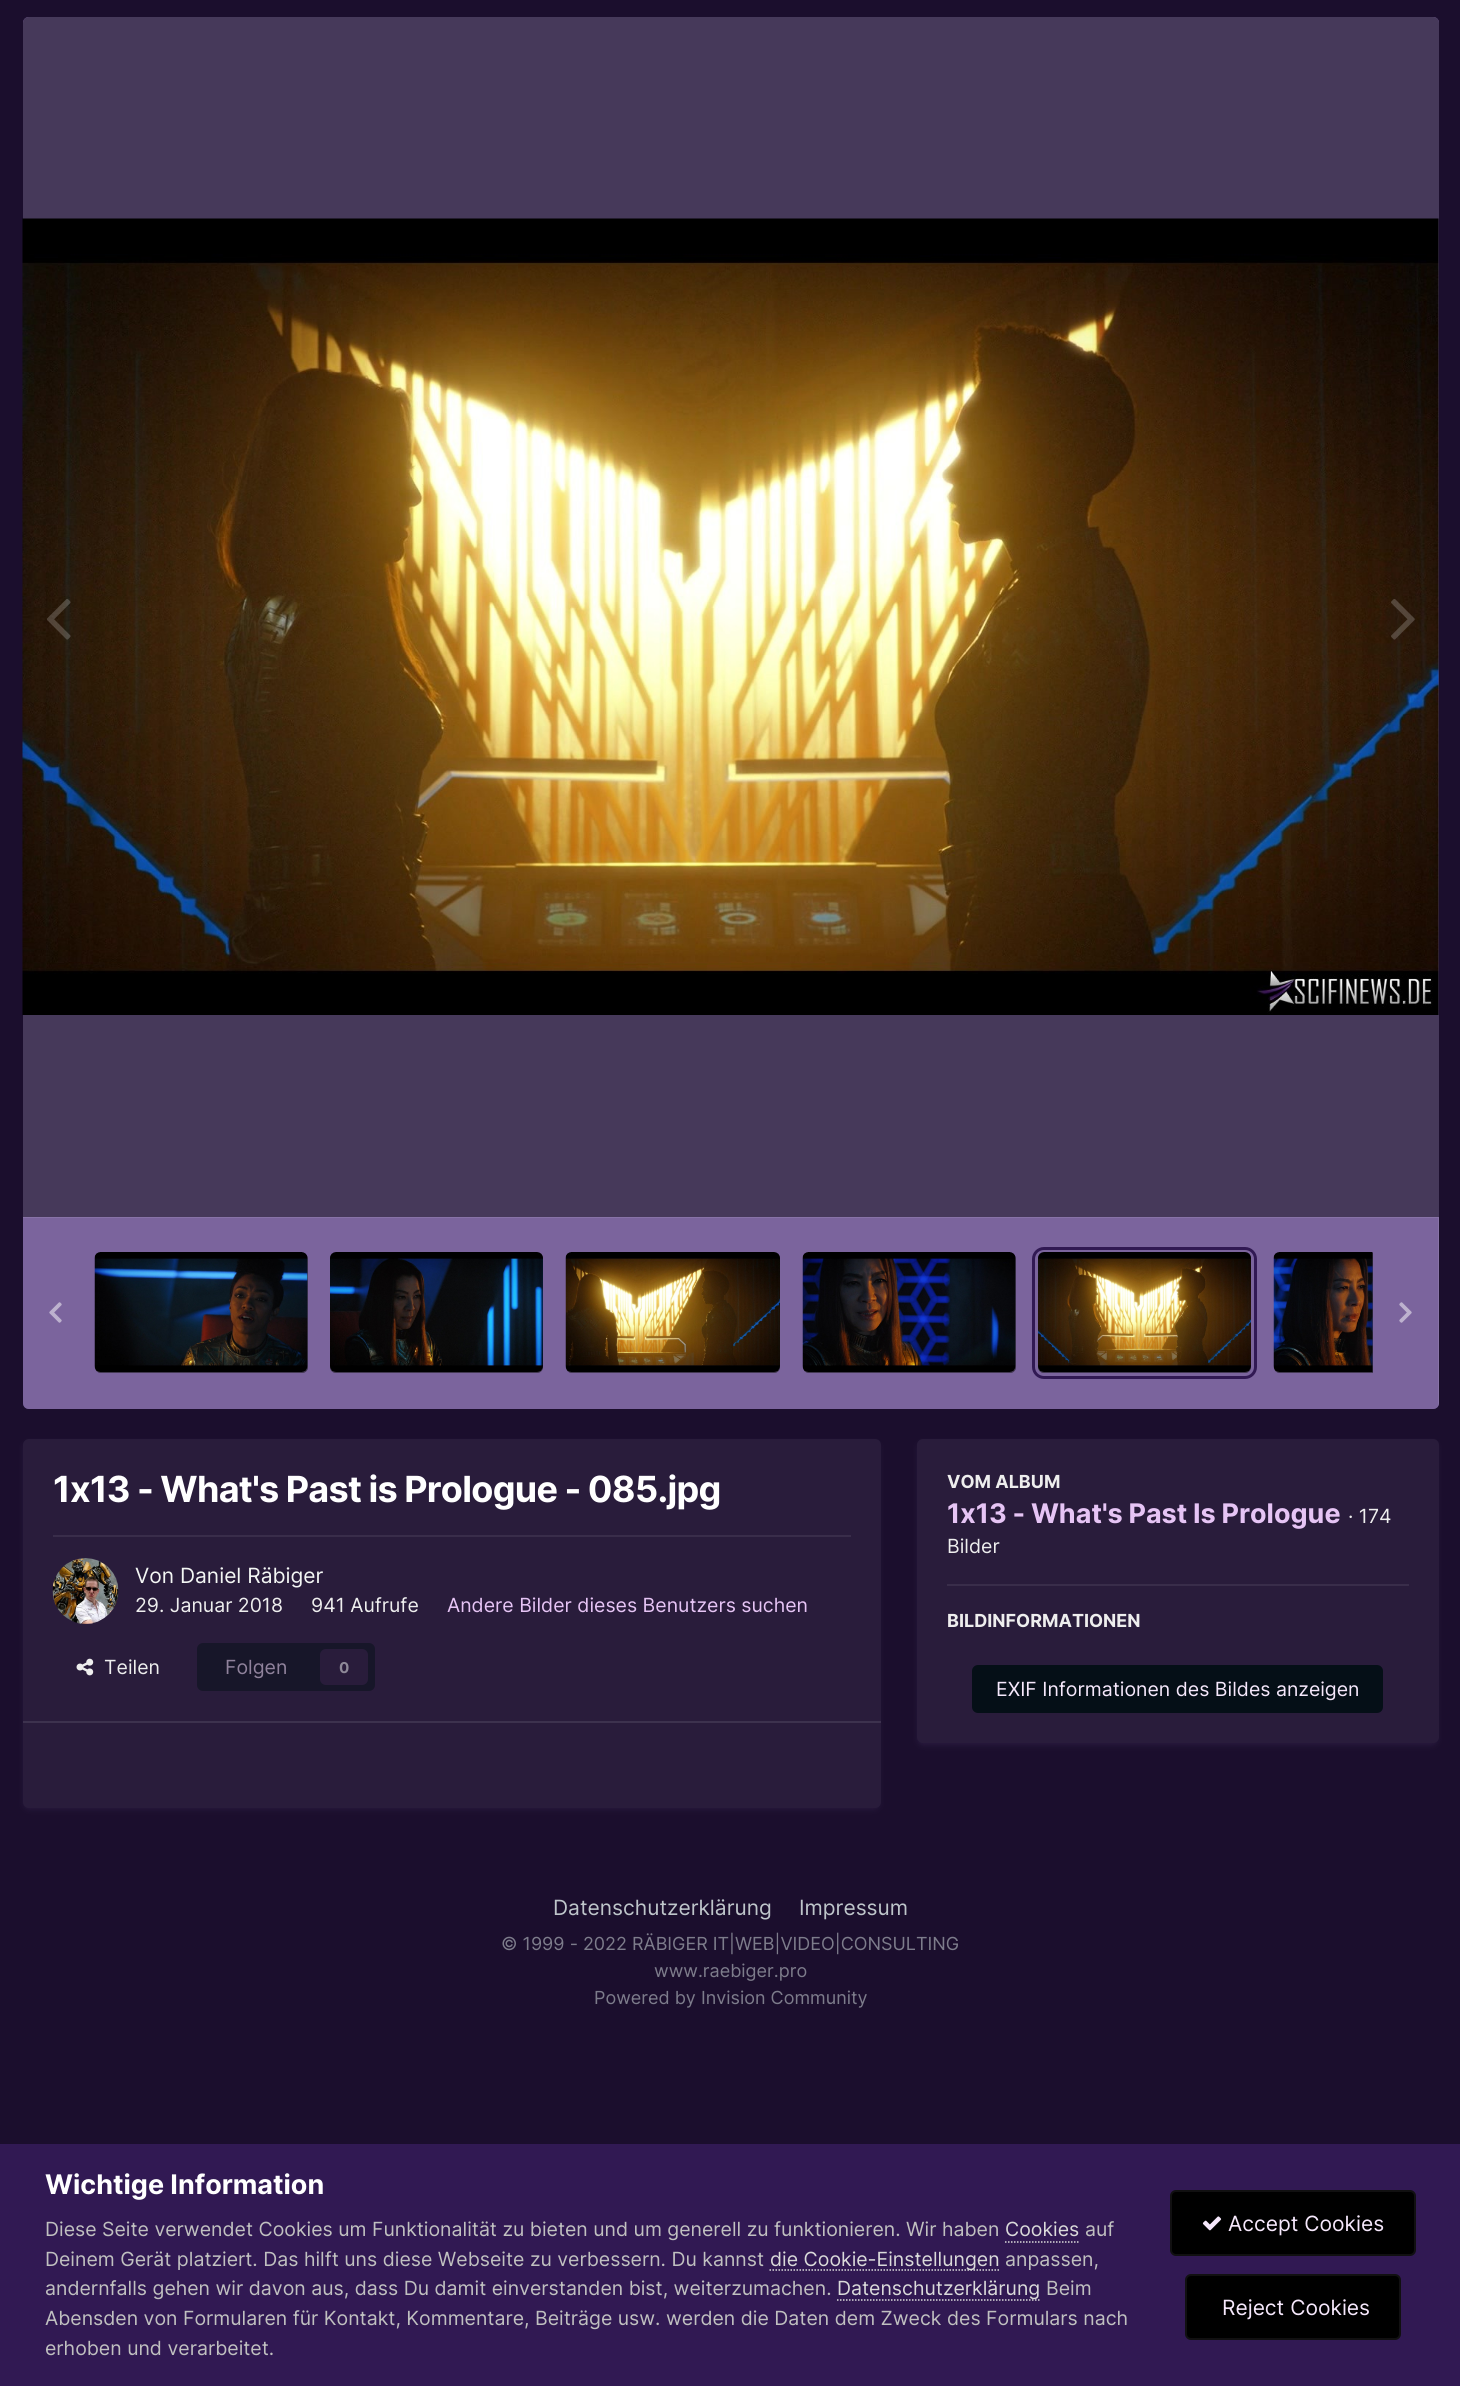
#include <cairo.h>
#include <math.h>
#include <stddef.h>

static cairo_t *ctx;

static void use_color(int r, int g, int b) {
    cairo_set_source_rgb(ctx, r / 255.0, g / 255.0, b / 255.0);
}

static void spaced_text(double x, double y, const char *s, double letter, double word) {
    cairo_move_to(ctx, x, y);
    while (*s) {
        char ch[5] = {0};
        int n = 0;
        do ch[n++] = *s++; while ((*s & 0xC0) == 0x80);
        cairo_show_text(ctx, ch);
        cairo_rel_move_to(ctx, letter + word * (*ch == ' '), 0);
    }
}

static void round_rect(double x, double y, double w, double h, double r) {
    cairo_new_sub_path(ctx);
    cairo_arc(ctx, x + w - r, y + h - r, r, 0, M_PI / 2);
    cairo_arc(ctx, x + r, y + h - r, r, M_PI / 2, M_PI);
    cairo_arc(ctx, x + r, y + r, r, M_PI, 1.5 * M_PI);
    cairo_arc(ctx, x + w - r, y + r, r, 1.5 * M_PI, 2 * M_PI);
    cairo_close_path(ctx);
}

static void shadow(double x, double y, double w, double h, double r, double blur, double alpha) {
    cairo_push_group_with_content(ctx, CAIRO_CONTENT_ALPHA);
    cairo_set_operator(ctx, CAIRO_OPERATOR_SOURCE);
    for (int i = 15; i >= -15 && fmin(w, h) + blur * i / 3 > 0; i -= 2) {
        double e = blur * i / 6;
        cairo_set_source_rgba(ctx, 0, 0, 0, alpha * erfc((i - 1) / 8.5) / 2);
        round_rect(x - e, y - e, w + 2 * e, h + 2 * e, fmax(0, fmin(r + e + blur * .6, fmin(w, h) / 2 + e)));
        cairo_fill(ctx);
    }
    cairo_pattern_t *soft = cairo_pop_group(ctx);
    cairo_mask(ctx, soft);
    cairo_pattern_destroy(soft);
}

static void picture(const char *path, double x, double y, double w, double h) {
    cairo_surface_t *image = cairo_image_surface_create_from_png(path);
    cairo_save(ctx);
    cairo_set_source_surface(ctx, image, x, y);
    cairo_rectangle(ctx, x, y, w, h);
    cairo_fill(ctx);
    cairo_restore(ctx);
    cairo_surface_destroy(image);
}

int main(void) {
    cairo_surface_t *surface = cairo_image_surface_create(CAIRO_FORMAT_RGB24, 1460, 2386);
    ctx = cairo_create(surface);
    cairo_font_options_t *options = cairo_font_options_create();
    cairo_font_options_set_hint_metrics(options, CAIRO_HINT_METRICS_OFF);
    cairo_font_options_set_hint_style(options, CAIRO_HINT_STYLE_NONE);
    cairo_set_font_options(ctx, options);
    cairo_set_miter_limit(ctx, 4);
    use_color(27, 14, 45);
    cairo_paint(ctx);
    use_color(175, 142, 224);
    cairo_new_path(ctx);
    cairo_move_to(ctx, 29, 17);
    cairo_line_to(ctx, 1433, 17);
    cairo_curve_to(ctx, 1436.5, 17, 1439, 19.5, 1439, 23);
    cairo_line_to(ctx, 1439, 1217);
    cairo_line_to(ctx, 23, 1217);
    cairo_line_to(ctx, 23, 23);
    cairo_curve_to(ctx, 23, 19.5, 25.5, 17, 29, 17);
    cairo_close_path(ctx);
    cairo_fill(ctx);
    cairo_set_source_rgba(ctx, 0, 0, 0, 0.6);
    cairo_new_path(ctx);
    cairo_move_to(ctx, 29, 17);
    cairo_line_to(ctx, 1433, 17);
    cairo_curve_to(ctx, 1436.5, 17, 1439, 19.5, 1439, 23);
    cairo_line_to(ctx, 1439, 1217);
    cairo_line_to(ctx, 23, 1217);
    cairo_line_to(ctx, 23, 23);
    cairo_curve_to(ctx, 23, 19.5, 25.5, 17, 29, 17);
    cairo_close_path(ctx);
    cairo_fill(ctx);
    picture("img1.png", 22, 218, 1417, 797);
    picture("img2.png", 47, 599, 24, 41);
    picture("img3.png", 1391, 599, 24, 41);
    use_color(175, 142, 224);
    cairo_new_path(ctx);
    cairo_move_to(ctx, 23, 1217);
    cairo_line_to(ctx, 1439, 1217);
    cairo_line_to(ctx, 1439, 1403);
    cairo_curve_to(ctx, 1439, 1406.5, 1436.5, 1409, 1433, 1409);
    cairo_line_to(ctx, 29, 1409);
    cairo_curve_to(ctx, 25.5, 1409, 23, 1406.5, 23, 1403);
    cairo_close_path(ctx);
    cairo_fill(ctx);
    cairo_set_source_rgba(ctx, 0, 0, 0, 0.3);
    cairo_new_path(ctx);
    cairo_move_to(ctx, 23, 1217);
    cairo_line_to(ctx, 1439, 1217);
    cairo_line_to(ctx, 1439, 1403);
    cairo_curve_to(ctx, 1439, 1406.5, 1436.5, 1409, 1433, 1409);
    cairo_line_to(ctx, 29, 1409);
    cairo_curve_to(ctx, 25.5, 1409, 23, 1406.5, 23, 1403);
    cairo_close_path(ctx);
    cairo_fill(ctx);
    cairo_set_source_rgba(ctx, 1, 1, 1, 0.1);
    cairo_new_path(ctx);
    cairo_move_to(ctx, 23, 1217);
    cairo_line_to(ctx, 23, 1218);
    cairo_line_to(ctx, 1438, 1218);
    cairo_line_to(ctx, 1438, 1404);
    cairo_curve_to(ctx, 1438, 1405, 1438, 1406, 1437, 1407);
    cairo_curve_to(ctx, 1438, 1406, 1439, 1405, 1439, 1403);
    cairo_line_to(ctx, 1439, 1217);
    cairo_close_path(ctx);
    cairo_fill(ctx);
    use_color(20, 20, 20);
    round_rect(95, 1253, 213, 120, 6);
    cairo_fill(ctx);
    cairo_set_source_rgba(ctx, 0.686, 0.557, 0.878, 0.3);
    round_rect(95, 1253, 213, 120, 6);
    cairo_fill(ctx);
    picture("img4.png", 94, 1252, 214, 120);
    use_color(20, 20, 20);
    round_rect(330, 1253, 213, 120, 6);
    cairo_fill(ctx);
    cairo_set_source_rgba(ctx, 0.686, 0.557, 0.878, 0.3);
    round_rect(330, 1253, 213, 120, 6);
    cairo_fill(ctx);
    picture("img5.png", 330, 1252, 213, 120);
    use_color(20, 20, 20);
    round_rect(566, 1253, 214, 120, 6);
    cairo_fill(ctx);
    cairo_set_source_rgba(ctx, 0.686, 0.557, 0.878, 0.3);
    round_rect(566, 1253, 214, 120, 6);
    cairo_fill(ctx);
    picture("img6.png", 565, 1252, 215, 120);
    use_color(20, 20, 20);
    round_rect(803, 1253, 213, 120, 6);
    cairo_fill(ctx);
    cairo_set_source_rgba(ctx, 0.686, 0.557, 0.878, 0.3);
    round_rect(803, 1253, 213, 120, 6);
    cairo_fill(ctx);
    picture("img7.png", 802, 1252, 214, 120);
    use_color(20, 20, 20);
    round_rect(1038, 1253, 213, 120, 6);
    cairo_fill(ctx);
    cairo_set_source_rgba(ctx, 0.686, 0.557, 0.878, 0.3);
    round_rect(1038, 1253, 213, 120, 6);
    cairo_fill(ctx);
    round_rect(1033.5, 1248.5, 222, 129, 10.5);
    use_color(49, 25, 83);
    cairo_set_line_width(ctx, 3);
    cairo_stroke(ctx);
    picture("img8.png", 1038, 1252, 213, 120);
    use_color(20, 20, 20);
    cairo_new_path(ctx);
    cairo_move_to(ctx, 1280, 1253);
    cairo_line_to(ctx, 1373, 1253);
    cairo_line_to(ctx, 1373, 1373);
    cairo_line_to(ctx, 1280, 1373);
    cairo_curve_to(ctx, 1276.5, 1373, 1274, 1370.5, 1274, 1367);
    cairo_line_to(ctx, 1274, 1259);
    cairo_curve_to(ctx, 1274, 1255.5, 1276.5, 1253, 1280, 1253);
    cairo_close_path(ctx);
    cairo_fill(ctx);
    cairo_set_source_rgba(ctx, 0.686, 0.557, 0.878, 0.3);
    cairo_new_path(ctx);
    cairo_move_to(ctx, 1280, 1253);
    cairo_line_to(ctx, 1373, 1253);
    cairo_line_to(ctx, 1373, 1373);
    cairo_line_to(ctx, 1280, 1373);
    cairo_curve_to(ctx, 1276.5, 1373, 1274, 1370.5, 1274, 1367);
    cairo_line_to(ctx, 1274, 1259);
    cairo_curve_to(ctx, 1274, 1255.5, 1276.5, 1253, 1280, 1253);
    cairo_close_path(ctx);
    cairo_fill(ctx);
    picture("img9.png", 1273, 1252, 100, 120);
    picture("img10.png", 49, 1302, 13, 21);
    picture("img11.png", 1399, 1302, 13, 21);
    use_color(175, 142, 224);
    shadow(24, 1443, 855, 366, 5, 3, 0.1);
    use_color(41, 28, 59);
    round_rect(23, 1439, 858, 369, 6);
    cairo_fill(ctx);
    cairo_select_font_face(ctx, "Inter", CAIRO_FONT_SLANT_NORMAL, CAIRO_FONT_WEIGHT_BOLD);
    cairo_set_font_size(ctx, 36);
    use_color(255, 255, 255);
    spaced_text(53, 1502, "1x13 - What's Past is Prologue - 085.jpg", -0.7, -0.5);
    use_color(57, 45, 74);
    cairo_rectangle(ctx, 53, 1535, 798, 2);
    cairo_fill(ctx);
    picture("img12.png", 52, 1558, 67, 66);
    cairo_select_font_face(ctx, "Inter", CAIRO_FONT_SLANT_NORMAL, CAIRO_FONT_WEIGHT_NORMAL);
    cairo_set_font_size(ctx, 21);
    use_color(243, 246, 244);
    cairo_move_to(ctx, 135, 1583);
    cairo_show_text(ctx, "Von Daniel Räbiger");
    cairo_set_font_size(ctx, 19.5);
    use_color(238, 238, 238);
    cairo_move_to(ctx, 135, 1612);
    cairo_show_text(ctx, "29. Januar 2018");
    cairo_move_to(ctx, 311, 1612);
    cairo_show_text(ctx, "941 Aufrufe");
    use_color(230, 196, 245);
    cairo_move_to(ctx, 447, 1612);
    cairo_show_text(ctx, "Andere Bilder dieses Benutzers suchen");
    picture("img13.png", 76, 1658, 18, 18);
    use_color(238, 238, 238);
    cairo_move_to(ctx, 104, 1674);
    cairo_show_text(ctx, "Teilen");
    use_color(23, 22, 41);
    round_rect(197, 1643, 178, 48, 6);
    cairo_fill(ctx);
    use_color(144, 130, 156);
    cairo_move_to(ctx, 225, 1674);
    cairo_show_text(ctx, "Folgen");
    use_color(41, 28, 59);
    round_rect(320, 1649, 48, 36, 6);
    cairo_fill(ctx);
    cairo_select_font_face(ctx, "Inter", CAIRO_FONT_SLANT_NORMAL, CAIRO_FONT_WEIGHT_BOLD);
    cairo_set_font_size(ctx, 15);
    use_color(142, 137, 152);
    cairo_move_to(ctx, 339, 1673);
    cairo_show_text(ctx, "0");
    use_color(61, 50, 78);
    cairo_rectangle(ctx, 23, 1721, 858, 2);
    cairo_fill(ctx);
    use_color(175, 142, 224);
    shadow(918, 1443, 519, 302, 5, 3, 0.1);
    use_color(41, 28, 59);
    round_rect(917, 1439, 522, 304, 6);
    cairo_fill(ctx);
    cairo_set_font_size(ctx, 18);
    use_color(238, 238, 238);
    cairo_move_to(ctx, 947, 1488);
    cairo_show_text(ctx, "VOM ALBUM");
    cairo_set_font_size(ctx, 27);
    use_color(230, 196, 245);
    spaced_text(947, 1523, "1x13 - What's Past Is Prologue", 0, -0.5);
    cairo_select_font_face(ctx, "Inter", CAIRO_FONT_SLANT_NORMAL, CAIRO_FONT_WEIGHT_NORMAL);
    cairo_set_font_size(ctx, 19.5);
    use_color(238, 238, 238);
    cairo_move_to(ctx, 1348, 1523);
    cairo_show_text(ctx, "· 174");
    cairo_move_to(ctx, 947, 1553);
    cairo_show_text(ctx, "Bilder");
    use_color(57, 45, 74);
    cairo_rectangle(ctx, 947, 1584, 462, 2);
    cairo_fill(ctx);
    cairo_select_font_face(ctx, "Inter", CAIRO_FONT_SLANT_NORMAL, CAIRO_FONT_WEIGHT_BOLD);
    cairo_set_font_size(ctx, 18);
    use_color(238, 238, 238);
    cairo_move_to(ctx, 947, 1627);
    cairo_show_text(ctx, "BILDINFORMATIONEN");
    use_color(5, 15, 23);
    round_rect(972, 1665, 411, 48, 6);
    cairo_fill(ctx);
    cairo_select_font_face(ctx, "Inter", CAIRO_FONT_SLANT_NORMAL, CAIRO_FONT_WEIGHT_NORMAL);
    cairo_set_font_size(ctx, 19.5);
    use_color(246, 232, 252);
    cairo_move_to(ctx, 996, 1696);
    cairo_show_text(ctx, "EXIF Informationen des Bildes anzeigen");
    cairo_set_font_size(ctx, 21);
    use_color(190, 197, 202);
    cairo_move_to(ctx, 553, 1915);
    cairo_show_text(ctx, "Datenschutzerklärung");
    cairo_move_to(ctx, 799, 1915);
    cairo_show_text(ctx, "Impressum");
    cairo_set_font_size(ctx, 18);
    use_color(125, 124, 139);
    cairo_move_to(ctx, 501, 1950);
    cairo_show_text(ctx, "© 1999 - 2022 RÄBIGER IT|WEB|VIDEO|CONSULTING");
    cairo_move_to(ctx, 654, 1977);
    cairo_show_text(ctx, "www.raebiger.pro");
    cairo_move_to(ctx, 594, 2004);
    cairo_show_text(ctx, "Powered by Invision Community");
    use_color(49, 25, 83);
    cairo_rectangle(ctx, 0, 2144, 1460, 242);
    cairo_fill(ctx);
    cairo_select_font_face(ctx, "Inter", CAIRO_FONT_SLANT_NORMAL, CAIRO_FONT_WEIGHT_BOLD);
    cairo_set_font_size(ctx, 27);
    use_color(255, 255, 255);
    cairo_move_to(ctx, 45, 2194);
    cairo_show_text(ctx, "Wichtige Information");
    cairo_select_font_face(ctx, "Inter", CAIRO_FONT_SLANT_NORMAL, CAIRO_FONT_WEIGHT_NORMAL);
    cairo_set_font_size(ctx, 19.5);
    use_color(192, 192, 192);
    cairo_move_to(ctx, 45, 2236);
    cairo_show_text(ctx, "Diese Seite verwendet Cookies um Funktionalität zu bieten und um generell zu funktionieren. Wir haben");
    use_color(218, 218, 218);
    cairo_move_to(ctx, 1005, 2236);
    cairo_show_text(ctx, "Cookies");
    cairo_new_path(ctx);
    cairo_move_to(ctx, 1005, 2242);
    cairo_line_to(ctx, 1078.5, 2242);
    cairo_set_line_width(ctx, 1.5);
    cairo_set_dash(ctx, (double[]){1.5, 1.5}, 2, 0);
    cairo_stroke(ctx);
    use_color(192, 192, 192);
    cairo_move_to(ctx, 1085, 2236);
    cairo_show_text(ctx, "auf");
    cairo_move_to(ctx, 45, 2266);
    cairo_show_text(ctx, "Deinem Gerät platziert. Das hilft uns diese Webseite zu verbessern. Du kannst");
    cairo_new_path(ctx);
    cairo_move_to(ctx, 769.5, 2270);
    cairo_line_to(ctx, 999, 2270);
    use_color(218, 218, 218);
    cairo_stroke(ctx);
    cairo_move_to(ctx, 770, 2266);
    cairo_show_text(ctx, "die Cookie-Einstellungen");
    use_color(192, 192, 192);
    cairo_move_to(ctx, 1005, 2266);
    cairo_show_text(ctx, "anpassen,");
    cairo_move_to(ctx, 45, 2295);
    cairo_show_text(ctx, "andernfalls gehen wir davon aus, dass Du damit einverstanden bist, weiterzumachen.");
    cairo_new_path(ctx);
    cairo_move_to(ctx, 837, 2300);
    cairo_line_to(ctx, 1039.5, 2300);
    use_color(218, 218, 218);
    cairo_stroke(ctx);
    cairo_move_to(ctx, 837, 2295);
    cairo_show_text(ctx, "Datenschutzerklärung");
    use_color(192, 192, 192);
    cairo_move_to(ctx, 1046, 2295);
    cairo_show_text(ctx, "Beim");
    cairo_move_to(ctx, 45, 2325);
    cairo_show_text(ctx, "Abensden von Formularen für Kontakt, Kommentare, Beiträge usw. werden die Daten dem Zweck des Formulars nach");
    cairo_move_to(ctx, 45, 2355);
    cairo_show_text(ctx, "erhoben und verarbeitet.");
    use_color(0, 0, 0);
    round_rect(1170, 2190, 246, 66, 6);
    cairo_fill(ctx);
    round_rect(1171, 2191, 244, 64, 5);
    cairo_set_source_rgba(ctx, 0.965, 0.91, 0.988, 0.07);
    cairo_set_line_width(ctx, 2);
    cairo_set_dash(ctx, NULL, 0, 0);
    cairo_stroke(ctx);
    picture("img14.png", 1202, 2216, 20, 15);
    cairo_set_font_size(ctx, 21);
    use_color(246, 232, 252);
    cairo_move_to(ctx, 1228, 2231);
    cairo_show_text(ctx, "Accept Cookies");
    use_color(0, 0, 0);
    round_rect(1185, 2274, 216, 66, 6);
    cairo_fill(ctx);
    round_rect(1186, 2275, 214, 64, 5);
    cairo_set_source_rgba(ctx, 0.965, 0.91, 0.988, 0.07);
    cairo_stroke(ctx);
    use_color(246, 232, 252);
    cairo_move_to(ctx, 1222, 2315);
    cairo_show_text(ctx, "Reject Cookies");
    cairo_surface_write_to_png(surface, "result.png");
    cairo_font_options_destroy(options);
    cairo_destroy(ctx);
    cairo_surface_destroy(surface);
    return 0;
}
